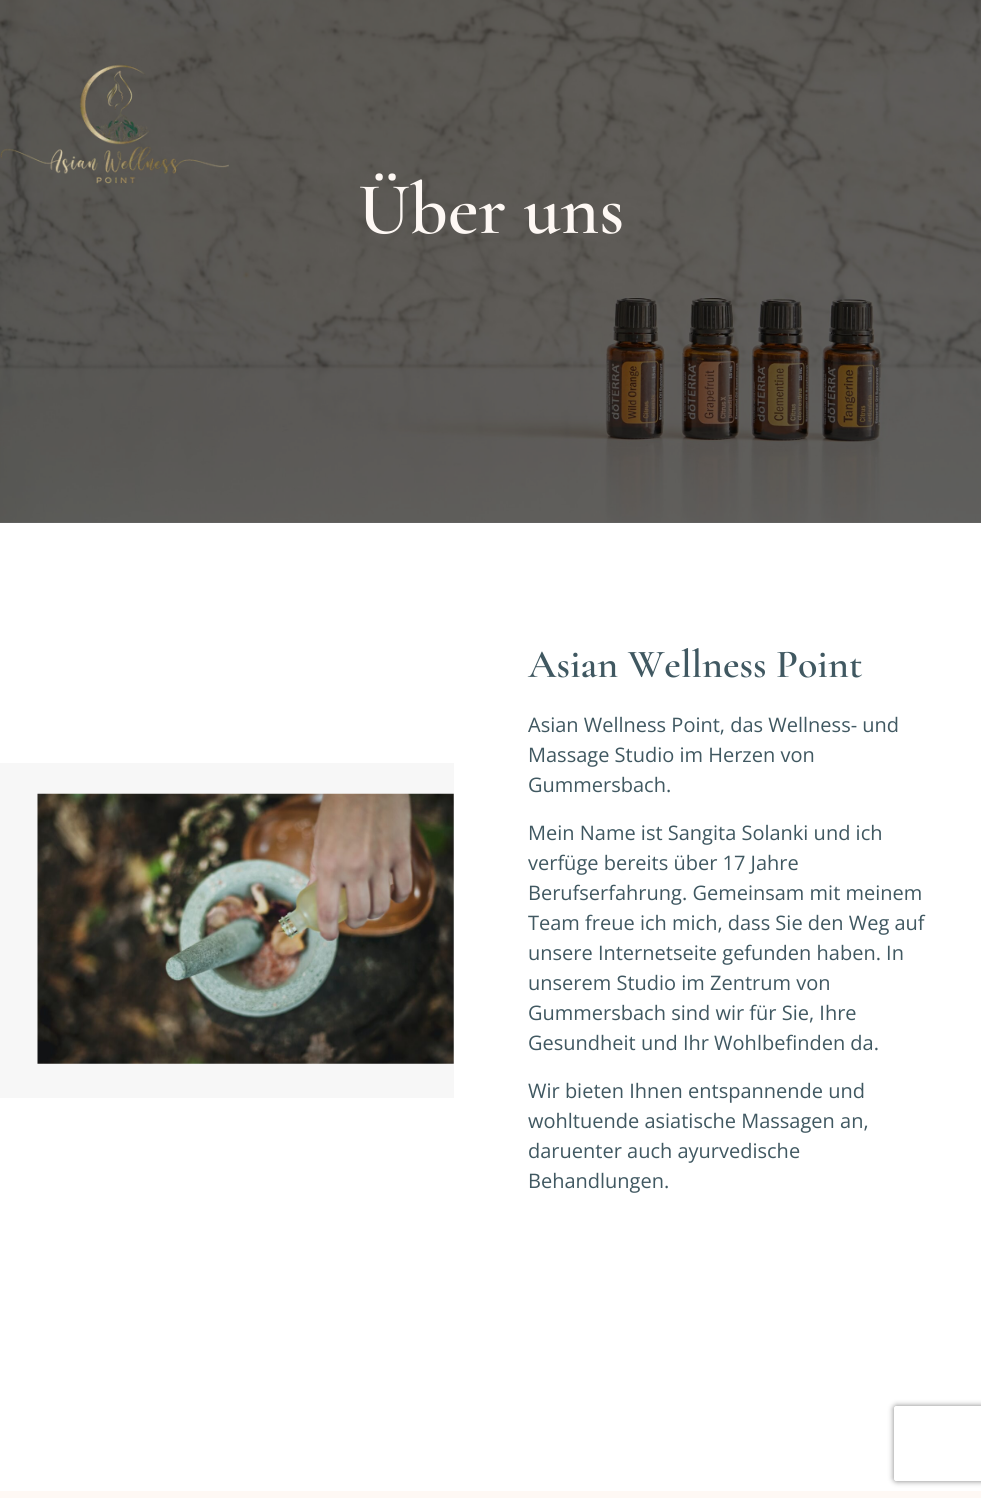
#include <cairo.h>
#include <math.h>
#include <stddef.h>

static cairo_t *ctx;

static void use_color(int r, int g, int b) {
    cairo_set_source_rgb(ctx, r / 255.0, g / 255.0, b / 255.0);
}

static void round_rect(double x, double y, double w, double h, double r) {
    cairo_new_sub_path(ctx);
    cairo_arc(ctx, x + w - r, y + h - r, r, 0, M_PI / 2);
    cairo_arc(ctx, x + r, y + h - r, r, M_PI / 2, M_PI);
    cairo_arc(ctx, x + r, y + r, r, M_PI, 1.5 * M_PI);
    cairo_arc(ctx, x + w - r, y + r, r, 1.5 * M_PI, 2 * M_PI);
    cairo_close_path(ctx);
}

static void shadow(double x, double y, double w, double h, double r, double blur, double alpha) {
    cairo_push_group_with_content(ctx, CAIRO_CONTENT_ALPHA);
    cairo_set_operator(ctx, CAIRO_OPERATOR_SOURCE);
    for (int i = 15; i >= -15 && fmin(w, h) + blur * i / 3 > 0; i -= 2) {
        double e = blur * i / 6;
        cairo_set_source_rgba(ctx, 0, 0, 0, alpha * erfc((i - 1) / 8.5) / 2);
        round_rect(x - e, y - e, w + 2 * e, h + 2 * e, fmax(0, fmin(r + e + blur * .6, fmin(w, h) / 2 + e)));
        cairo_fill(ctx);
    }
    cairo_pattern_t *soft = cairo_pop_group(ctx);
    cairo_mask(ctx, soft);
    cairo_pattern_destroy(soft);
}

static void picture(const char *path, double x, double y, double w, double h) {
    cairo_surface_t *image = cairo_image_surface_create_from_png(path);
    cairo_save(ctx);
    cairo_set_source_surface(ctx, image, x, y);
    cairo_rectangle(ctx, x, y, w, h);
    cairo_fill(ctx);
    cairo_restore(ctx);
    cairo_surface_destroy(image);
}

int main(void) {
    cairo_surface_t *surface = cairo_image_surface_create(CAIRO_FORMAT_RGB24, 981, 1498);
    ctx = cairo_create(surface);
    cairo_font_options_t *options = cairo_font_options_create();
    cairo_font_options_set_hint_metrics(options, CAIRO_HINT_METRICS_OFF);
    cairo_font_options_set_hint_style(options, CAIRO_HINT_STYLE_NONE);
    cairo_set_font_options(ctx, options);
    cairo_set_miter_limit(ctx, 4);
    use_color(255, 255, 255);
    cairo_paint(ctx);
    use_color(105, 105, 105);
    cairo_rectangle(ctx, 0, 522, 981, 1);
    cairo_fill(ctx);
    picture("img2.png", 0, 0, 981, 523);
    picture("img1.png", 0, 64, 229, 120);
    cairo_select_font_face(ctx, "Cormorant Garamond SemiBold", CAIRO_FONT_SLANT_NORMAL, CAIRO_FONT_WEIGHT_NORMAL);
    cairo_set_font_size(ctx, 74);
    use_color(254, 248, 244);
    cairo_move_to(ctx, 358, 233);
    cairo_show_text(ctx, "Über uns");
    use_color(247, 247, 247);
    cairo_set_fill_rule(ctx, CAIRO_FILL_RULE_EVEN_ODD);
    cairo_new_path(ctx);
    cairo_move_to(ctx, -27, 763);
    cairo_line_to(ctx, -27, 1098);
    cairo_line_to(ctx, 454, 1098);
    cairo_line_to(ctx, 454, 763);
    cairo_close_path(ctx);
    cairo_move_to(ctx, 38, 794);
    cairo_line_to(ctx, 38, 1064);
    cairo_line_to(ctx, 454, 1064);
    cairo_line_to(ctx, 454, 794);
    cairo_close_path(ctx);
    cairo_fill(ctx);
    picture("img3.png", 37, 793, 417, 271);
    cairo_set_font_size(ctx, 40);
    use_color(64, 88, 97);
    cairo_move_to(ctx, 528, 677);
    cairo_show_text(ctx, "Asian Wellness Point");
    cairo_select_font_face(ctx, "Open Sans", CAIRO_FONT_SLANT_NORMAL, CAIRO_FONT_WEIGHT_NORMAL);
    cairo_set_font_size(ctx, 20);
    cairo_move_to(ctx, 528, 732);
    cairo_show_text(ctx, "Asian Wellness Point, das Wellness- und");
    cairo_move_to(ctx, 528, 762);
    cairo_show_text(ctx, "Massage Studio im Herzen von");
    cairo_move_to(ctx, 528, 792);
    cairo_show_text(ctx, "Gummersbach.");
    cairo_move_to(ctx, 528, 840);
    cairo_show_text(ctx, "Mein Name ist Sangita Solanki und ich");
    cairo_move_to(ctx, 528, 870);
    cairo_show_text(ctx, "verfüge bereits über 17 Jahre");
    cairo_move_to(ctx, 528, 900);
    cairo_show_text(ctx, "Berufserfahrung. Gemeinsam mit meinem");
    cairo_move_to(ctx, 528, 930);
    cairo_show_text(ctx, "Team freue ich mich, dass Sie den Weg auf");
    cairo_move_to(ctx, 528, 960);
    cairo_show_text(ctx, "unsere Internetseite gefunden haben. In");
    cairo_move_to(ctx, 528, 990);
    cairo_show_text(ctx, "unserem Studio im Zentrum von");
    cairo_move_to(ctx, 528, 1020);
    cairo_show_text(ctx, "Gummersbach sind wir für Sie, Ihre");
    cairo_move_to(ctx, 528, 1050);
    cairo_show_text(ctx, "Gesundheit und Ihr Wohlbefinden da.");
    cairo_move_to(ctx, 528, 1098);
    cairo_show_text(ctx, "Wir bieten Ihnen entspannende und");
    cairo_move_to(ctx, 528, 1128);
    cairo_show_text(ctx, "wohltuende asiatische Massagen an,");
    cairo_move_to(ctx, 528, 1158);
    cairo_show_text(ctx, "daruenter auch ayurvedische");
    cairo_move_to(ctx, 528, 1188);
    cairo_show_text(ctx, "Behandlungen.");
    use_color(254, 248, 244);
    cairo_rectangle(ctx, 0, 1491, 981, 7);
    cairo_fill(ctx);
    cairo_save(ctx);
    cairo_new_path(ctx);
    cairo_move_to(ctx, 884, 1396);
    cairo_line_to(ctx, 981, 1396);
    cairo_line_to(ctx, 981, 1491);
    cairo_line_to(ctx, 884, 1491);
    cairo_close_path(ctx);
    cairo_move_to(ctx, 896.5, 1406);
    cairo_line_to(ctx, 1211.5, 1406);
    cairo_curve_to(ctx, 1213, 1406, 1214, 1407, 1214, 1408.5);
    cairo_line_to(ctx, 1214, 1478.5);
    cairo_curve_to(ctx, 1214, 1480, 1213, 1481, 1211.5, 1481);
    cairo_line_to(ctx, 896.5, 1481);
    cairo_curve_to(ctx, 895, 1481, 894, 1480, 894, 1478.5);
    cairo_line_to(ctx, 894, 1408.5);
    cairo_curve_to(ctx, 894, 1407, 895, 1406, 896.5, 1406);
    cairo_close_path(ctx);
    cairo_clip(ctx);
    use_color(128, 128, 128);
    shadow(894, 1406, 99, 75, 2.5, 3, 1);
    cairo_restore(ctx);
    cairo_surface_write_to_png(surface, "result.png");
    cairo_font_options_destroy(options);
    cairo_destroy(ctx);
    cairo_surface_destroy(surface);
    return 0;
}
